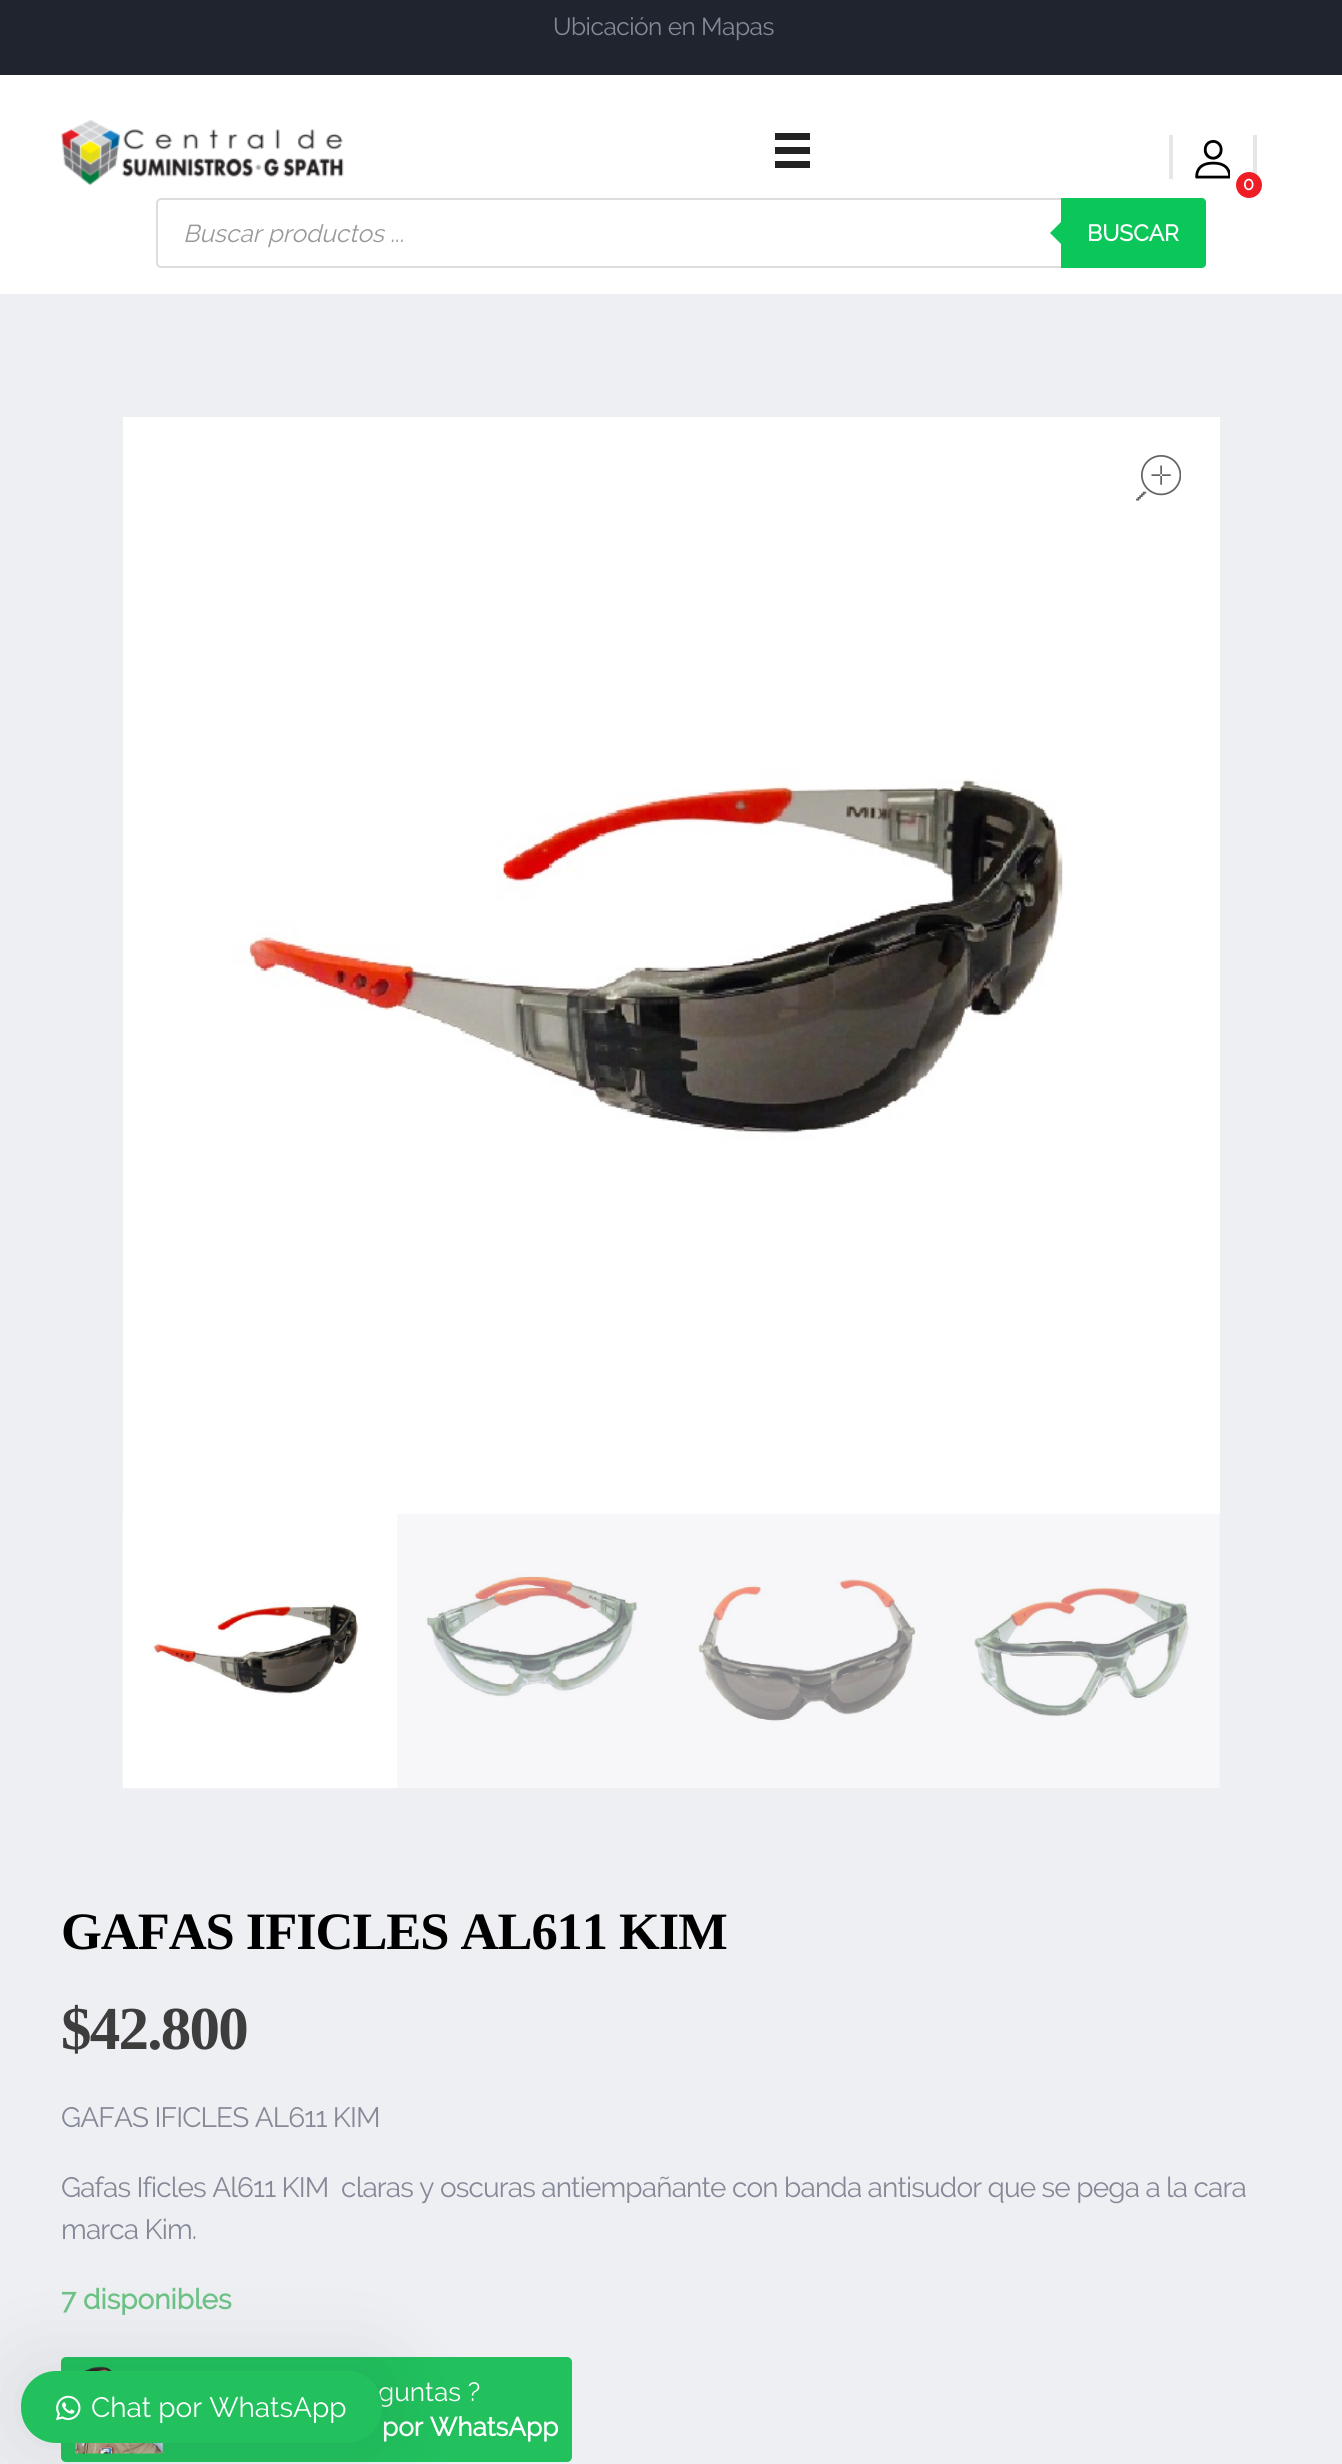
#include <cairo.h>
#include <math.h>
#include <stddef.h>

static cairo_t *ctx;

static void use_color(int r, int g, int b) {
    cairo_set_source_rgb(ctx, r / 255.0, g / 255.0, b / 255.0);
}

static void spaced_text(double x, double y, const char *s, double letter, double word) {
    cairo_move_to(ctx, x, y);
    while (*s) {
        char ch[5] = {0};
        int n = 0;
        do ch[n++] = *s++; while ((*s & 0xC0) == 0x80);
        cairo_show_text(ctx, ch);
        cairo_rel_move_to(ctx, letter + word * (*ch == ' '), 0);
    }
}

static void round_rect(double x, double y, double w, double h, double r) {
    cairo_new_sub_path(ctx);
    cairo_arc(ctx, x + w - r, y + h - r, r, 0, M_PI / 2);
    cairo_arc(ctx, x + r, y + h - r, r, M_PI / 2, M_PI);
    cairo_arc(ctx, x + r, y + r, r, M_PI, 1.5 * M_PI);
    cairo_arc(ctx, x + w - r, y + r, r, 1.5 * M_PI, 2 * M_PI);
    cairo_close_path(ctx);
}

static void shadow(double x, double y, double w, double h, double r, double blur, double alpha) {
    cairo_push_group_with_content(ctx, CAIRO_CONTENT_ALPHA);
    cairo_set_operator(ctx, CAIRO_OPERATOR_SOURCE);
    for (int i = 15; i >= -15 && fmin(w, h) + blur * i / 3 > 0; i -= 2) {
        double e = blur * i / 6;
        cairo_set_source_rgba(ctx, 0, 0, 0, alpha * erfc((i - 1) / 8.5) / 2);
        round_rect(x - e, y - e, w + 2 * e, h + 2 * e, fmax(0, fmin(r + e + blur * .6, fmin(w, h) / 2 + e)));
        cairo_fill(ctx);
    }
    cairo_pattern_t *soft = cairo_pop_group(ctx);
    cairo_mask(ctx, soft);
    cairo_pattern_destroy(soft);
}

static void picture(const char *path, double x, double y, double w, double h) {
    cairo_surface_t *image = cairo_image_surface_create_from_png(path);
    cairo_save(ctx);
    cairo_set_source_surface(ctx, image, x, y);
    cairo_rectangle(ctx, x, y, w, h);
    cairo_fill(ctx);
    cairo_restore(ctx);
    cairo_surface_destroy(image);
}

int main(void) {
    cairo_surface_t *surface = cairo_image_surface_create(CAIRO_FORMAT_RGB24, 1342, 2464);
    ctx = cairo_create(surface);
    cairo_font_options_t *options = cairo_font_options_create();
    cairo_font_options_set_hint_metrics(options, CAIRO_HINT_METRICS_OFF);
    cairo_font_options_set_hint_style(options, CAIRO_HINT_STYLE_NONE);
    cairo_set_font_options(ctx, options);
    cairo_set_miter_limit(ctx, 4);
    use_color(238, 239, 243);
    cairo_paint(ctx);
    use_color(32, 36, 46);
    cairo_rectangle(ctx, 0, 0, 1342, 75);
    cairo_fill(ctx);
    cairo_select_font_face(ctx, "Raleway", CAIRO_FONT_SLANT_NORMAL, CAIRO_FONT_WEIGHT_NORMAL);
    cairo_set_font_size(ctx, 24.5);
    use_color(133, 137, 151);
    spaced_text(553, 35, "Ubicación en Mapas", -0.5, 0);
    use_color(255, 255, 255);
    cairo_rectangle(ctx, 0, 75, 1342, 219);
    cairo_fill(ctx);
    picture("img1.png", 61, 120, 283, 66);
    use_color(34, 34, 34);
    cairo_rectangle(ctx, 775, 133, 35, 7);
    cairo_fill(ctx);
    cairo_rectangle(ctx, 775, 147, 35, 7);
    cairo_fill(ctx);
    cairo_rectangle(ctx, 775, 161, 35, 7);
    cairo_fill(ctx);
    use_color(230, 230, 230);
    cairo_rectangle(ctx, 1169, 135, 4, 44);
    cairo_fill(ctx);
    picture("img2.png", 1195, 140, 35, 39);
    cairo_rectangle(ctx, 1253, 135, 4, 44);
    cairo_fill(ctx);
    use_color(238, 29, 38);
    cairo_arc(ctx, 1249, 185, 13, 0, 2 * M_PI);
    cairo_fill(ctx);
    cairo_select_font_face(ctx, "Raleway", CAIRO_FONT_SLANT_NORMAL, CAIRO_FONT_WEIGHT_BOLD);
    cairo_set_font_size(ctx, 18);
    use_color(255, 255, 255);
    cairo_move_to(ctx, 1243, 190);
    cairo_show_text(ctx, "0");
    round_rect(157, 199, 1048, 68, 4);
    use_color(221, 221, 221);
    cairo_stroke(ctx);
    cairo_select_font_face(ctx, "Raleway", CAIRO_FONT_SLANT_ITALIC, CAIRO_FONT_WEIGHT_NORMAL);
    cairo_set_font_size(ctx, 24.5);
    use_color(153, 153, 153);
    cairo_move_to(ctx, 183, 242);
    cairo_show_text(ctx, "Buscar productos ...");
    use_color(11, 199, 89);
    cairo_new_path(ctx);
    cairo_move_to(ctx, 1061, 198);
    cairo_line_to(ctx, 1202, 198);
    cairo_curve_to(ctx, 1204, 198, 1206, 200, 1206, 202);
    cairo_line_to(ctx, 1206, 264);
    cairo_curve_to(ctx, 1206, 266, 1204, 268, 1202, 268);
    cairo_line_to(ctx, 1061, 268);
    cairo_close_path(ctx);
    cairo_fill(ctx);
    cairo_new_path(ctx);
    cairo_move_to(ctx, 1064, 219);
    cairo_line_to(ctx, 1064, 247);
    cairo_line_to(ctx, 1050, 233);
    cairo_close_path(ctx);
    cairo_fill(ctx);
    cairo_select_font_face(ctx, "Raleway", CAIRO_FONT_SLANT_NORMAL, CAIRO_FONT_WEIGHT_BOLD);
    cairo_set_font_size(ctx, 22.75);
    use_color(255, 255, 255);
    cairo_move_to(ctx, 1087, 241);
    cairo_show_text(ctx, "BUSCAR");
    picture("img3.png", 123, 417, 1097, 1097);
    picture("img4.png", 1136, 455, 45, 46);
    picture("img5.png", 122, 1514, 276, 275);
    picture("img6.png", 397, 1514, 275, 274);
    picture("img7.png", 672, 1514, 273, 274);
    picture("img8.png", 945, 1514, 275, 274);
    cairo_select_font_face(ctx, "Liberation Serif", CAIRO_FONT_SLANT_NORMAL, CAIRO_FONT_WEIGHT_BOLD);
    cairo_set_font_size(ctx, 52.5);
    use_color(0, 0, 0);
    spaced_text(61, 1949, "GAFAS IFICLES AL611 KIM", -1.05, 0);
    cairo_set_font_size(ctx, 61);
    use_color(61, 61, 61);
    spaced_text(61, 2049, "$42.800", -1.75, 0);
    cairo_select_font_face(ctx, "Raleway", CAIRO_FONT_SLANT_NORMAL, CAIRO_FONT_WEIGHT_NORMAL);
    cairo_set_font_size(ctx, 28);
    use_color(133, 137, 151);
    spaced_text(61, 2127, "GAFAS IFICLES AL611 KIM", -0.85, 0);
    spaced_text(61, 2197, "Gafas Ificles Al611 KIM  claras y oscuras antiempañante con banda antisudor que se pega a la cara", -0.85, 0);
    spaced_text(61, 2239, "marca Kim.", -0.85, 0);
    cairo_select_font_face(ctx, "Raleway", CAIRO_FONT_SLANT_NORMAL, CAIRO_FONT_WEIGHT_BOLD);
    use_color(109, 194, 134);
    cairo_move_to(ctx, 61, 2309);
    cairo_show_text(ctx, "7 disponibles");
    use_color(34, 193, 94);
    round_rect(61, 2357, 511, 105, 5);
    cairo_fill(ctx);
    picture("img9.png", 75, 2366, 88, 88);
    cairo_select_font_face(ctx, "Raleway", CAIRO_FONT_SLANT_NORMAL, CAIRO_FONT_WEIGHT_NORMAL);
    cairo_set_font_size(ctx, 26.25);
    use_color(255, 255, 255);
    cairo_move_to(ctx, 378, 2401);
    cairo_show_text(ctx, "guntas ?");
    cairo_select_font_face(ctx, "Raleway", CAIRO_FONT_SLANT_NORMAL, CAIRO_FONT_WEIGHT_BOLD);
    cairo_move_to(ctx, 382, 2436);
    cairo_show_text(ctx, "por WhatsApp");
    use_color(0, 0, 0);
    shadow(21, 2371, 361, 72, 35, 44, 0.1);
    use_color(34, 193, 94);
    round_rect(21, 2371, 361, 72, 35);
    cairo_fill(ctx);
    picture("img10.png", 56, 2395, 25, 26);
    cairo_select_font_face(ctx, "Raleway", CAIRO_FONT_SLANT_NORMAL, CAIRO_FONT_WEIGHT_NORMAL);
    cairo_set_font_size(ctx, 28);
    use_color(255, 255, 255);
    cairo_move_to(ctx, 91, 2417);
    cairo_show_text(ctx, "Chat por WhatsApp");
    cairo_surface_write_to_png(surface, "result.png");
    cairo_font_options_destroy(options);
    cairo_destroy(ctx);
    cairo_surface_destroy(surface);
    return 0;
}
